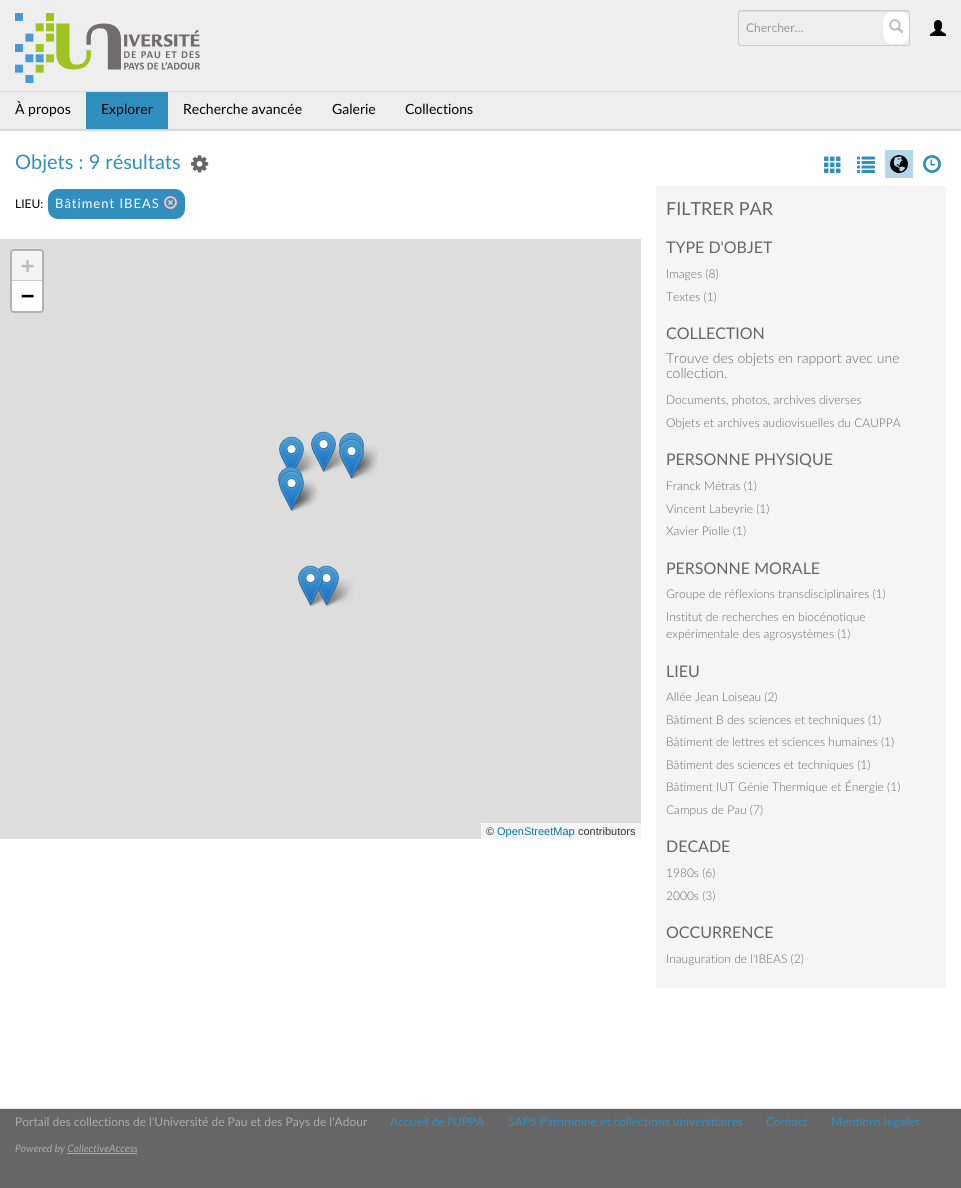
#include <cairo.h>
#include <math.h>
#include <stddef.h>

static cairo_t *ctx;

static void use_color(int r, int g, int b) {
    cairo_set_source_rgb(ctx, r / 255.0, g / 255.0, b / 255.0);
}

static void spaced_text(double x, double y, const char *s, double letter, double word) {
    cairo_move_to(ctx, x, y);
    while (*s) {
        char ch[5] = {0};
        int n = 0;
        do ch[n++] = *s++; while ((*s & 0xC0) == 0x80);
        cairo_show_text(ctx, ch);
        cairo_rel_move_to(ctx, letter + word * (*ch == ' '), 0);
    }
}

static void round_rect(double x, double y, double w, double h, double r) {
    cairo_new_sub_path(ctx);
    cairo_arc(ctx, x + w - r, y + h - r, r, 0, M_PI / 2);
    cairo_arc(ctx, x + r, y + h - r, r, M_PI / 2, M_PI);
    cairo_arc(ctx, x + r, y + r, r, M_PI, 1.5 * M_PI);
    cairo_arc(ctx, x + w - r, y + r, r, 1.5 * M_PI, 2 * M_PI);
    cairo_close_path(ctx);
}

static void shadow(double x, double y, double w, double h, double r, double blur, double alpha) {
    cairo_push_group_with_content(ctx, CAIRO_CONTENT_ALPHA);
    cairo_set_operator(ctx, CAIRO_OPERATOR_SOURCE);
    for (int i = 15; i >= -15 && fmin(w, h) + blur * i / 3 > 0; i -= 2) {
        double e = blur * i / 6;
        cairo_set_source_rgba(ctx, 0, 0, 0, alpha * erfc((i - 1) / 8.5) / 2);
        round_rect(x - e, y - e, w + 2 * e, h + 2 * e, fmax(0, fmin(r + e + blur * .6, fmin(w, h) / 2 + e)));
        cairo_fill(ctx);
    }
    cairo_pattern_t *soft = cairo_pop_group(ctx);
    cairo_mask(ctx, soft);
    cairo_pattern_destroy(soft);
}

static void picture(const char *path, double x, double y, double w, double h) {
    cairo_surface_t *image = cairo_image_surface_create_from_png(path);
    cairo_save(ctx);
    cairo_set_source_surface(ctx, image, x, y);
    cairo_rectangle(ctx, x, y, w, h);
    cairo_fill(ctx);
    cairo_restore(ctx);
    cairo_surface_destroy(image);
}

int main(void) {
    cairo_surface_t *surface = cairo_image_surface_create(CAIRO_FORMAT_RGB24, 961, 1188);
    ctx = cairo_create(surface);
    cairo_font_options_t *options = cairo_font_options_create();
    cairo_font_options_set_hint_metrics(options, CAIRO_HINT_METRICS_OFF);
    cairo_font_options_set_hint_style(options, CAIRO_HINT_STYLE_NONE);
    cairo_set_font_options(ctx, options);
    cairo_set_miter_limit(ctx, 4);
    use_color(255, 255, 255);
    cairo_paint(ctx);
    use_color(0, 0, 0);
    shadow(0, 1, 961, 129, 0, 1.5, 0.3);
    use_color(238, 238, 238);
    cairo_rectangle(ctx, 0, 0, 961, 129);
    cairo_fill(ctx);
    picture("img1.png", 15, 13, 185, 70);
    use_color(220, 220, 220);
    cairo_new_path(ctx);
    cairo_move_to(ctx, 741, 12);
    cairo_line_to(ctx, 907, 12);
    cairo_curve_to(ctx, 908, 12, 909, 13, 909, 14);
    cairo_curve_to(ctx, 909, 13, 909, 11, 907, 11);
    cairo_line_to(ctx, 741, 11);
    cairo_curve_to(ctx, 739, 11, 739, 13, 739, 14);
    cairo_curve_to(ctx, 739, 13, 740, 12, 741, 12);
    cairo_close_path(ctx);
    cairo_fill(ctx);
    round_rect(738.5, 10.5, 171, 35, 2.5);
    use_color(204, 204, 204);
    cairo_set_line_width(ctx, 1);
    cairo_stroke(ctx);
    cairo_select_font_face(ctx, "Lato", CAIRO_FONT_SLANT_NORMAL, CAIRO_FONT_WEIGHT_NORMAL);
    cairo_set_font_size(ctx, 12);
    use_color(153, 153, 153);
    cairo_move_to(ctx, 746, 32);
    cairo_show_text(ctx, "Chercher…");
    use_color(255, 255, 255);
    round_rect(883, 12, 26, 32, 10);
    cairo_fill(ctx);
    picture("img2.png", 889, 19, 15, 15);
    picture("img3.png", 930, 20, 16, 16);
    use_color(221, 221, 221);
    cairo_rectangle(ctx, 0, 91, 961, 1);
    cairo_fill(ctx);
    cairo_set_font_size(ctx, 14);
    use_color(0, 0, 0);
    cairo_move_to(ctx, 15, 114);
    cairo_show_text(ctx, "À propos");
    use_color(49, 143, 191);
    cairo_rectangle(ctx, 86, 92, 82, 37);
    cairo_fill(ctx);
    use_color(0, 0, 0);
    cairo_move_to(ctx, 101, 114);
    cairo_show_text(ctx, "Explorer");
    cairo_move_to(ctx, 183, 114);
    cairo_show_text(ctx, "Recherche avancée");
    cairo_move_to(ctx, 332, 114);
    cairo_show_text(ctx, "Galerie");
    cairo_move_to(ctx, 405, 114);
    cairo_show_text(ctx, "Collections");
    cairo_set_font_size(ctx, 20);
    use_color(49, 143, 191);
    cairo_move_to(ctx, 15, 169);
    cairo_show_text(ctx, "Objets : 9 résultats");
    picture("img4.png", 191, 155, 18, 18);
    cairo_set_font_size(ctx, 12);
    use_color(0, 0, 0);
    cairo_move_to(ctx, 15, 208);
    cairo_show_text(ctx, "LIEU:");
    use_color(49, 143, 191);
    round_rect(48, 189, 137, 30, 10);
    cairo_fill(ctx);
    cairo_set_font_size(ctx, 13);
    use_color(255, 255, 255);
    spaced_text(55, 208, "Bâtiment IBEAS", 1, 0);
    picture("img5.png", 164, 196, 13, 13);
    use_color(221, 221, 221);
    cairo_rectangle(ctx, 0, 239, 641, 600);
    cairo_fill(ctx);
    round_rect(11, 250, 32, 62, 3);
    use_color(177, 177, 177);
    cairo_set_line_width(ctx, 2);
    cairo_stroke(ctx);
    use_color(244, 244, 244);
    cairo_new_path(ctx);
    cairo_move_to(ctx, 14, 251);
    cairo_line_to(ctx, 40, 251);
    cairo_curve_to(ctx, 41, 251, 42, 252, 42, 253);
    cairo_line_to(ctx, 42, 281);
    cairo_line_to(ctx, 12, 281);
    cairo_line_to(ctx, 12, 253);
    cairo_curve_to(ctx, 12, 252, 13, 251, 14, 251);
    cairo_close_path(ctx);
    cairo_fill(ctx);
    use_color(204, 204, 204);
    cairo_rectangle(ctx, 12, 280, 30, 1);
    cairo_fill(ctx);
    cairo_select_font_face(ctx, "DejaVu Sans Mono", CAIRO_FONT_SLANT_NORMAL, CAIRO_FONT_WEIGHT_BOLD);
    cairo_set_font_size(ctx, 22);
    use_color(187, 187, 187);
    cairo_move_to(ctx, 21, 273);
    cairo_show_text(ctx, "+");
    use_color(255, 255, 255);
    cairo_new_path(ctx);
    cairo_move_to(ctx, 12, 281);
    cairo_line_to(ctx, 42, 281);
    cairo_line_to(ctx, 42, 309);
    cairo_curve_to(ctx, 42, 310, 41, 311, 40, 311);
    cairo_line_to(ctx, 14, 311);
    cairo_curve_to(ctx, 13, 311, 12, 310, 12, 309);
    cairo_close_path(ctx);
    cairo_fill(ctx);
    use_color(0, 0, 0);
    cairo_move_to(ctx, 21, 303);
    cairo_show_text(ctx, "−");
    use_color(245, 245, 245);
    cairo_rectangle(ctx, 481, 823, 160, 16);
    cairo_fill(ctx);
    cairo_select_font_face(ctx, "Liberation Sans", CAIRO_FONT_SLANT_NORMAL, CAIRO_FONT_WEIGHT_NORMAL);
    cairo_set_font_size(ctx, 11);
    use_color(51, 51, 51);
    cairo_move_to(ctx, 486, 835);
    cairo_show_text(ctx, "©");
    use_color(0, 120, 168);
    cairo_move_to(ctx, 497, 835);
    cairo_show_text(ctx, "OpenStreetMap");
    use_color(51, 51, 51);
    cairo_move_to(ctx, 578, 835);
    cairo_show_text(ctx, "contributors");
    picture("img14.png", 295, 449, 23, 26);
    picture("img6.png", 279, 436, 25, 33);
    picture("img15.png", 321, 444, 24, 28);
    picture("img7.png", 311, 431, 25, 41);
    picture("img17.png", 349, 451, 29, 28);
    picture("img16.png", 354, 445, 24, 28);
    picture("img8.png", 339, 432, 25, 18);
    picture("img9.png", 339, 438, 25, 41);
    picture("img18.png", 289, 479, 28, 28);
    picture("img19.png", 289, 483, 29, 28);
    picture("img10.png", 278, 466, 25, 40);
    picture("img11.png", 279, 470, 25, 41);
    picture("img17.png", 324, 578, 29, 28);
    picture("img20.png", 308, 586, 29, 20);
    picture("img13.png", 317, 565, 22, 41);
    picture("img12.png", 298, 565, 25, 41);
    picture("img21.png", 824, 156, 17, 17);
    picture("img22.png", 857, 156, 18, 17);
    use_color(180, 214, 232);
    cairo_rectangle(ctx, 885, 150, 28, 28);
    cairo_fill(ctx);
    picture("img23.png", 890, 155, 18, 18);
    picture("img24.png", 923, 155, 18, 18);
    use_color(245, 245, 245);
    cairo_rectangle(ctx, 656, 186, 290, 802);
    cairo_fill(ctx);
    cairo_select_font_face(ctx, "Lato", CAIRO_FONT_SLANT_NORMAL, CAIRO_FONT_WEIGHT_NORMAL);
    cairo_set_font_size(ctx, 18);
    use_color(102, 102, 102);
    cairo_move_to(ctx, 666, 215);
    cairo_show_text(ctx, "FILTRER PAR");
    cairo_set_font_size(ctx, 16);
    cairo_move_to(ctx, 666, 253);
    cairo_show_text(ctx, "TYPE D'OBJET");
    cairo_select_font_face(ctx, "Lato Light", CAIRO_FONT_SLANT_NORMAL, CAIRO_FONT_WEIGHT_NORMAL);
    cairo_set_font_size(ctx, 12);
    cairo_move_to(ctx, 666, 278);
    cairo_show_text(ctx, "Images (8)");
    cairo_move_to(ctx, 666, 301);
    cairo_show_text(ctx, "Textes (1)");
    cairo_select_font_face(ctx, "Lato", CAIRO_FONT_SLANT_NORMAL, CAIRO_FONT_WEIGHT_NORMAL);
    cairo_set_font_size(ctx, 16);
    cairo_move_to(ctx, 666, 339);
    cairo_show_text(ctx, "COLLECTION");
    cairo_select_font_face(ctx, "Lato Light", CAIRO_FONT_SLANT_NORMAL, CAIRO_FONT_WEIGHT_NORMAL);
    cairo_set_font_size(ctx, 14);
    cairo_move_to(ctx, 666, 363);
    cairo_show_text(ctx, "Trouve des objets en rapport avec une");
    cairo_move_to(ctx, 666, 378);
    cairo_show_text(ctx, "collection.");
    cairo_set_font_size(ctx, 12);
    cairo_move_to(ctx, 666, 404);
    cairo_show_text(ctx, "Documents, photos, archives diverses");
    cairo_move_to(ctx, 666, 427);
    cairo_show_text(ctx, "Objets et archives audiovisuelles du CAUPPA");
    cairo_select_font_face(ctx, "Lato", CAIRO_FONT_SLANT_NORMAL, CAIRO_FONT_WEIGHT_NORMAL);
    cairo_set_font_size(ctx, 16);
    cairo_move_to(ctx, 666, 465);
    cairo_show_text(ctx, "PERSONNE PHYSIQUE");
    cairo_select_font_face(ctx, "Lato Light", CAIRO_FONT_SLANT_NORMAL, CAIRO_FONT_WEIGHT_NORMAL);
    cairo_set_font_size(ctx, 12);
    cairo_move_to(ctx, 666, 490);
    cairo_show_text(ctx, "Franck Métras (1)");
    cairo_move_to(ctx, 666, 513);
    cairo_show_text(ctx, "Vincent Labeyrie (1)");
    cairo_move_to(ctx, 666, 535);
    cairo_show_text(ctx, "Xavier Piolle (1)");
    cairo_select_font_face(ctx, "Lato", CAIRO_FONT_SLANT_NORMAL, CAIRO_FONT_WEIGHT_NORMAL);
    cairo_set_font_size(ctx, 16);
    cairo_move_to(ctx, 666, 574);
    cairo_show_text(ctx, "PERSONNE MORALE");
    cairo_select_font_face(ctx, "Lato Light", CAIRO_FONT_SLANT_NORMAL, CAIRO_FONT_WEIGHT_NORMAL);
    cairo_set_font_size(ctx, 12);
    cairo_move_to(ctx, 666, 598);
    cairo_show_text(ctx, "Groupe de réflexions transdisciplinaires (1)");
    cairo_move_to(ctx, 666, 621);
    cairo_show_text(ctx, "Institut de recherches en biocénotique");
    cairo_move_to(ctx, 666, 638);
    cairo_show_text(ctx, "expérimentale des agrosystèmes (1)");
    cairo_select_font_face(ctx, "Lato", CAIRO_FONT_SLANT_NORMAL, CAIRO_FONT_WEIGHT_NORMAL);
    cairo_set_font_size(ctx, 16);
    cairo_move_to(ctx, 666, 677);
    cairo_show_text(ctx, "LIEU");
    cairo_select_font_face(ctx, "Lato Light", CAIRO_FONT_SLANT_NORMAL, CAIRO_FONT_WEIGHT_NORMAL);
    cairo_set_font_size(ctx, 12);
    cairo_move_to(ctx, 666, 701);
    cairo_show_text(ctx, "Allée Jean Loiseau (2)");
    cairo_move_to(ctx, 666, 724);
    cairo_show_text(ctx, "Bâtiment B des sciences et techniques (1)");
    cairo_move_to(ctx, 666, 746);
    cairo_show_text(ctx, "Bâtiment de lettres et sciences humaines (1)");
    cairo_move_to(ctx, 666, 769);
    cairo_show_text(ctx, "Bâtiment des sciences et techniques (1)");
    cairo_move_to(ctx, 666, 791);
    cairo_show_text(ctx, "Bâtiment IUT Génie Thermique et Énergie (1)");
    cairo_move_to(ctx, 666, 814);
    cairo_show_text(ctx, "Campus de Pau (7)");
    cairo_select_font_face(ctx, "Lato", CAIRO_FONT_SLANT_NORMAL, CAIRO_FONT_WEIGHT_NORMAL);
    cairo_set_font_size(ctx, 16);
    cairo_move_to(ctx, 666, 852);
    cairo_show_text(ctx, "DECADE");
    cairo_select_font_face(ctx, "Lato Light", CAIRO_FONT_SLANT_NORMAL, CAIRO_FONT_WEIGHT_NORMAL);
    cairo_set_font_size(ctx, 12);
    cairo_move_to(ctx, 666, 877);
    cairo_show_text(ctx, "1980s (6)");
    cairo_move_to(ctx, 666, 900);
    cairo_show_text(ctx, "2000s (3)");
    cairo_select_font_face(ctx, "Lato", CAIRO_FONT_SLANT_NORMAL, CAIRO_FONT_WEIGHT_NORMAL);
    cairo_set_font_size(ctx, 16);
    cairo_move_to(ctx, 666, 938);
    cairo_show_text(ctx, "OCCURRENCE");
    cairo_select_font_face(ctx, "Lato Light", CAIRO_FONT_SLANT_NORMAL, CAIRO_FONT_WEIGHT_NORMAL);
    cairo_set_font_size(ctx, 12);
    cairo_move_to(ctx, 666, 963);
    cairo_show_text(ctx, "Inauguration de l'IBEAS (2)");
    cairo_rectangle(ctx, 0, 1109, 961, 79);
    cairo_fill(ctx);
    use_color(227, 227, 227);
    cairo_rectangle(ctx, 0, 1108, 961, 1);
    cairo_fill(ctx);
    cairo_select_font_face(ctx, "Lato", CAIRO_FONT_SLANT_NORMAL, CAIRO_FONT_WEIGHT_NORMAL);
    use_color(171, 171, 171);
    cairo_move_to(ctx, 15, 1126);
    cairo_show_text(ctx, "Portail des collections de l'Université de Pau et des Pays de l'Adour");
    use_color(49, 143, 191);
    cairo_move_to(ctx, 390, 1126);
    cairo_show_text(ctx, "Accueil de l'UPPA");
    cairo_move_to(ctx, 508, 1126);
    cairo_show_text(ctx, "SAPS Patrimoine et collections universitaires");
    cairo_move_to(ctx, 766, 1126);
    cairo_show_text(ctx, "Contact");
    cairo_move_to(ctx, 831, 1126);
    cairo_show_text(ctx, "Mentions légales");
    cairo_select_font_face(ctx, "Lato", CAIRO_FONT_SLANT_ITALIC, CAIRO_FONT_WEIGHT_NORMAL);
    cairo_set_font_size(ctx, 10.25);
    use_color(171, 171, 171);
    cairo_move_to(ctx, 15, 1152);
    cairo_show_text(ctx, "Powered by CollectiveAccess");
    cairo_rectangle(ctx, 67, 1153, 70, 1);
    cairo_fill(ctx);
    cairo_surface_write_to_png(surface, "result.png");
    cairo_font_options_destroy(options);
    cairo_destroy(ctx);
    cairo_surface_destroy(surface);
    return 0;
}
